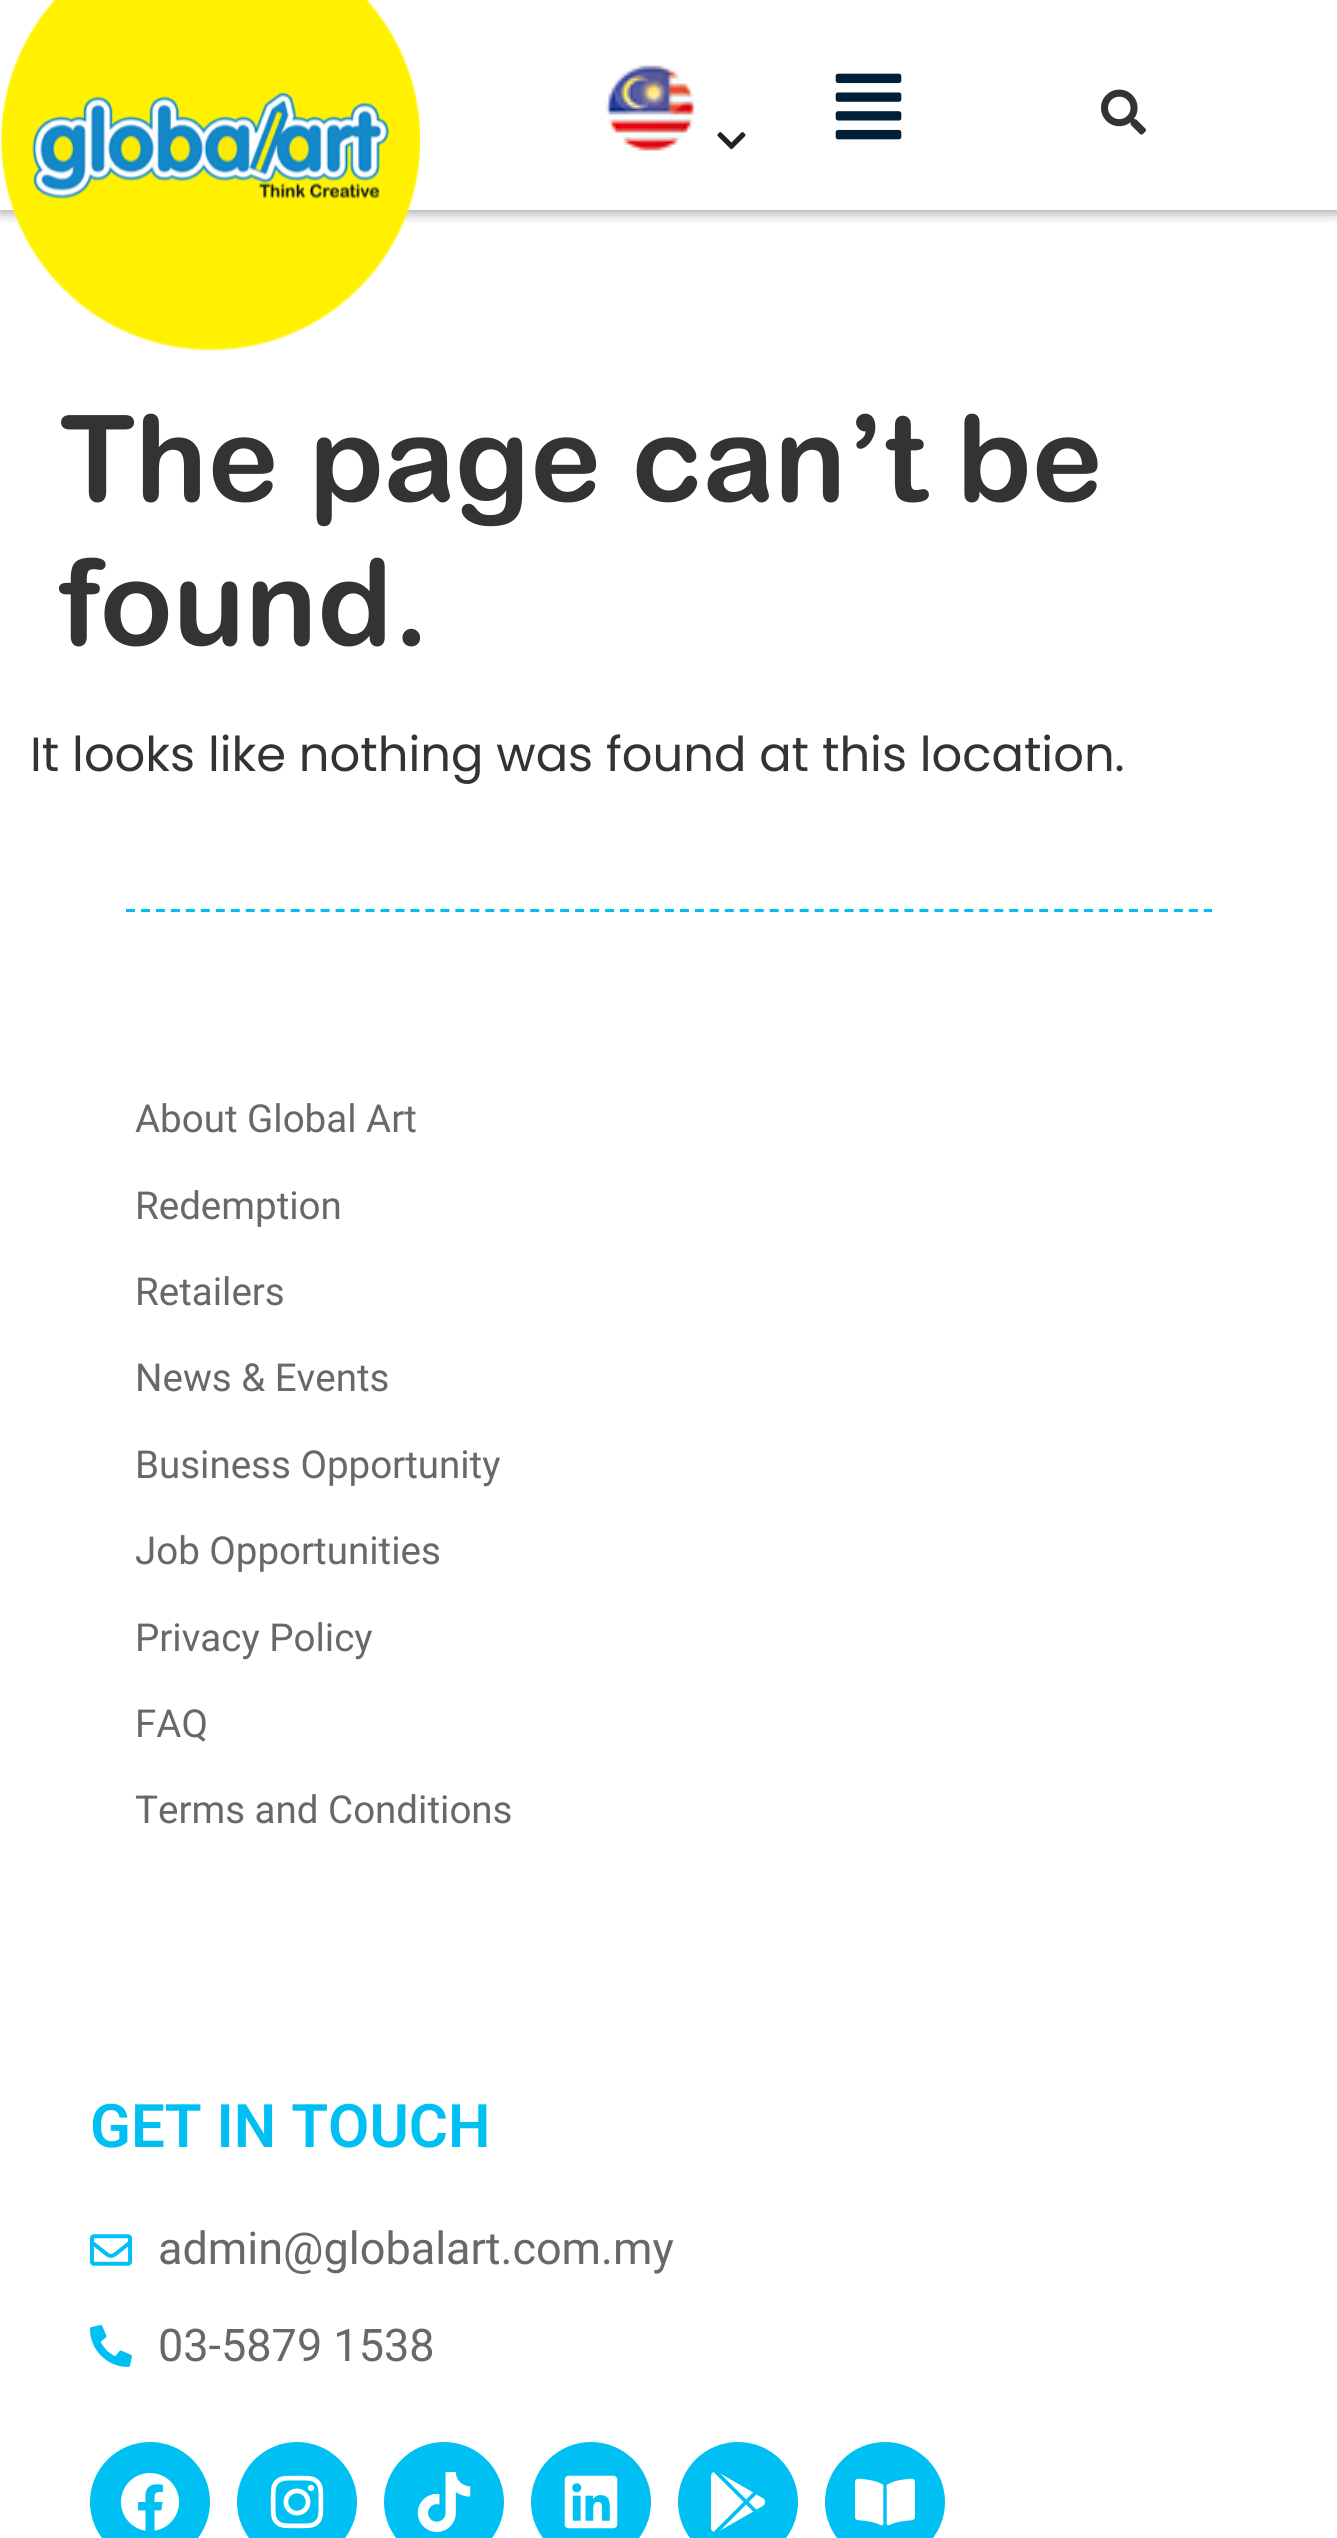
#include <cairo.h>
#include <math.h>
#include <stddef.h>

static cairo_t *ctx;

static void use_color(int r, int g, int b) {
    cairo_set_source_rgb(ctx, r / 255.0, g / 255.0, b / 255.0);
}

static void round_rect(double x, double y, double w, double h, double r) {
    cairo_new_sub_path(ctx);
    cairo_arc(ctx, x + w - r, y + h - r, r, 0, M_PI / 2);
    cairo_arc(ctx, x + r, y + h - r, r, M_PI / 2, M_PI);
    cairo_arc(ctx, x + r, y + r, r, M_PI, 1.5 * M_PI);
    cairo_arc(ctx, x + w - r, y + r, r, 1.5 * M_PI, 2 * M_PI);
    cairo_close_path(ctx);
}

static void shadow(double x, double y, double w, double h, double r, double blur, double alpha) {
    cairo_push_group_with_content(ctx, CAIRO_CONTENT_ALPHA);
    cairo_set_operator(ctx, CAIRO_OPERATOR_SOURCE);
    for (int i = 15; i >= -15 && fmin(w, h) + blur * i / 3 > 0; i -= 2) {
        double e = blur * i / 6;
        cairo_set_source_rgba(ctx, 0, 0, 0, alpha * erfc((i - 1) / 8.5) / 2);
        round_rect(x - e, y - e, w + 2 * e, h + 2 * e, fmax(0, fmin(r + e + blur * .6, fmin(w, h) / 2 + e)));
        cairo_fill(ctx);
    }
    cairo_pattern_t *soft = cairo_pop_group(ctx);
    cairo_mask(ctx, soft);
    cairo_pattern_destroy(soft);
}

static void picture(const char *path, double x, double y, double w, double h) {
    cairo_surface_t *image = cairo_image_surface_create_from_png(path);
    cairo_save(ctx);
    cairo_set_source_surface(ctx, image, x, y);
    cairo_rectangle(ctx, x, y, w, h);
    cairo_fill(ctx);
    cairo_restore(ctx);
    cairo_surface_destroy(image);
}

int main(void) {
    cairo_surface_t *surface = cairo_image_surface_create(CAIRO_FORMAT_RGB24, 1337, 2538);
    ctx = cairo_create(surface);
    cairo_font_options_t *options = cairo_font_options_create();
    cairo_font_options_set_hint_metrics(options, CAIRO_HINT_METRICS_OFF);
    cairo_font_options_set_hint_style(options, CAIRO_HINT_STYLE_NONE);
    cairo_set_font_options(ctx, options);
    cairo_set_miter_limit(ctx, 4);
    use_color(255, 255, 255);
    cairo_paint(ctx);
    cairo_save(ctx);
    cairo_rectangle(ctx, 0, 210, 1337, 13);
    cairo_clip(ctx);
    use_color(0, 0, 0);
    shadow(0, 0, 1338, 210, 0, 7.5, 0.5);
    cairo_restore(ctx);
    picture("img1.png", 1, 0, 419, 351);
    picture("img2.png", 605, 65, 91, 86);
    picture("img3.png", 717, 132, 29, 18);
    picture("img4.png", 835, 73, 67, 67);
    picture("img5.png", 1101, 89, 45, 46);
    cairo_select_font_face(ctx, "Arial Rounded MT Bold", CAIRO_FONT_SLANT_NORMAL, CAIRO_FONT_WEIGHT_BOLD);
    cairo_set_font_size(ctx, 120);
    use_color(51, 51, 51);
    cairo_move_to(ctx, 60, 501);
    cairo_show_text(ctx, "The page can’t be");
    cairo_move_to(ctx, 60, 645);
    cairo_show_text(ctx, "found.");
    cairo_select_font_face(ctx, "Poppins", CAIRO_FONT_SLANT_NORMAL, CAIRO_FONT_WEIGHT_NORMAL);
    cairo_set_font_size(ctx, 48);
    cairo_move_to(ctx, 30, 771);
    cairo_show_text(ctx, "It looks like nothing was found at this location.");
    cairo_new_path(ctx);
    cairo_move_to(ctx, 126, 910.5);
    cairo_line_to(ctx, 1212, 910.5);
    use_color(0, 192, 243);
    cairo_set_line_width(ctx, 3);
    cairo_set_dash(ctx, (double[]){9, 5.97}, 2, 0);
    cairo_stroke(ctx);
    cairo_select_font_face(ctx, "Roboto", CAIRO_FONT_SLANT_NORMAL, CAIRO_FONT_WEIGHT_NORMAL);
    cairo_set_font_size(ctx, 38.5);
    use_color(104, 104, 104);
    cairo_move_to(ctx, 135, 1132);
    cairo_show_text(ctx, "About Global Art");
    cairo_move_to(ctx, 135, 1219);
    cairo_show_text(ctx, "Redemption");
    cairo_move_to(ctx, 135, 1305);
    cairo_show_text(ctx, "Retailers");
    cairo_move_to(ctx, 135, 1391);
    cairo_show_text(ctx, "News & Events");
    cairo_move_to(ctx, 135, 1478);
    cairo_show_text(ctx, "Business Opportunity");
    cairo_move_to(ctx, 135, 1564);
    cairo_show_text(ctx, "Job Opportunities");
    cairo_move_to(ctx, 135, 1651);
    cairo_show_text(ctx, "Privacy Policy");
    cairo_move_to(ctx, 135, 1737);
    cairo_show_text(ctx, "FAQ");
    cairo_move_to(ctx, 135, 1823);
    cairo_show_text(ctx, "Terms and Conditions");
    cairo_select_font_face(ctx, "Roboto SemiBold", CAIRO_FONT_SLANT_NORMAL, CAIRO_FONT_WEIGHT_NORMAL);
    cairo_set_font_size(ctx, 60);
    use_color(0, 192, 243);
    cairo_move_to(ctx, 90, 2147);
    cairo_show_text(ctx, "GET IN TOUCH");
    picture("img6.png", 90, 2234, 42, 32);
    cairo_select_font_face(ctx, "Roboto", CAIRO_FONT_SLANT_NORMAL, CAIRO_FONT_WEIGHT_NORMAL);
    cairo_set_font_size(ctx, 45);
    use_color(104, 104, 104);
    cairo_move_to(ctx, 158, 2264);
    cairo_show_text(ctx, "admin@globalart.com.my");
    picture("img7.png", 90, 2325, 42, 42);
    cairo_move_to(ctx, 158, 2361);
    cairo_show_text(ctx, "03-5879 1538");
    use_color(0, 192, 243);
    cairo_new_path(ctx);
    cairo_arc(ctx, 150, 2502, 60, 0, 2 * M_PI);
    cairo_fill(ctx);
    picture("img8.png", 120, 2472, 60, 59);
    cairo_arc(ctx, 297, 2502, 60, 0, 2 * M_PI);
    cairo_fill(ctx);
    picture("img9.png", 270, 2475, 54, 54);
    cairo_arc(ctx, 444, 2502, 60, 0, 2 * M_PI);
    cairo_fill(ctx);
    picture("img10.png", 417, 2472, 54, 60);
    cairo_arc(ctx, 591, 2502, 60, 0, 2 * M_PI);
    cairo_fill(ctx);
    picture("img11.png", 564, 2475, 54, 54);
    cairo_arc(ctx, 738, 2502, 60, 0, 2 * M_PI);
    cairo_fill(ctx);
    picture("img12.png", 710, 2472, 55, 60);
    cairo_arc(ctx, 885, 2502, 60, 0, 2 * M_PI);
    cairo_fill(ctx);
    picture("img13.png", 855, 2478, 60, 48);
    cairo_surface_write_to_png(surface, "result.png");
    cairo_font_options_destroy(options);
    cairo_destroy(ctx);
    cairo_surface_destroy(surface);
    return 0;
}
